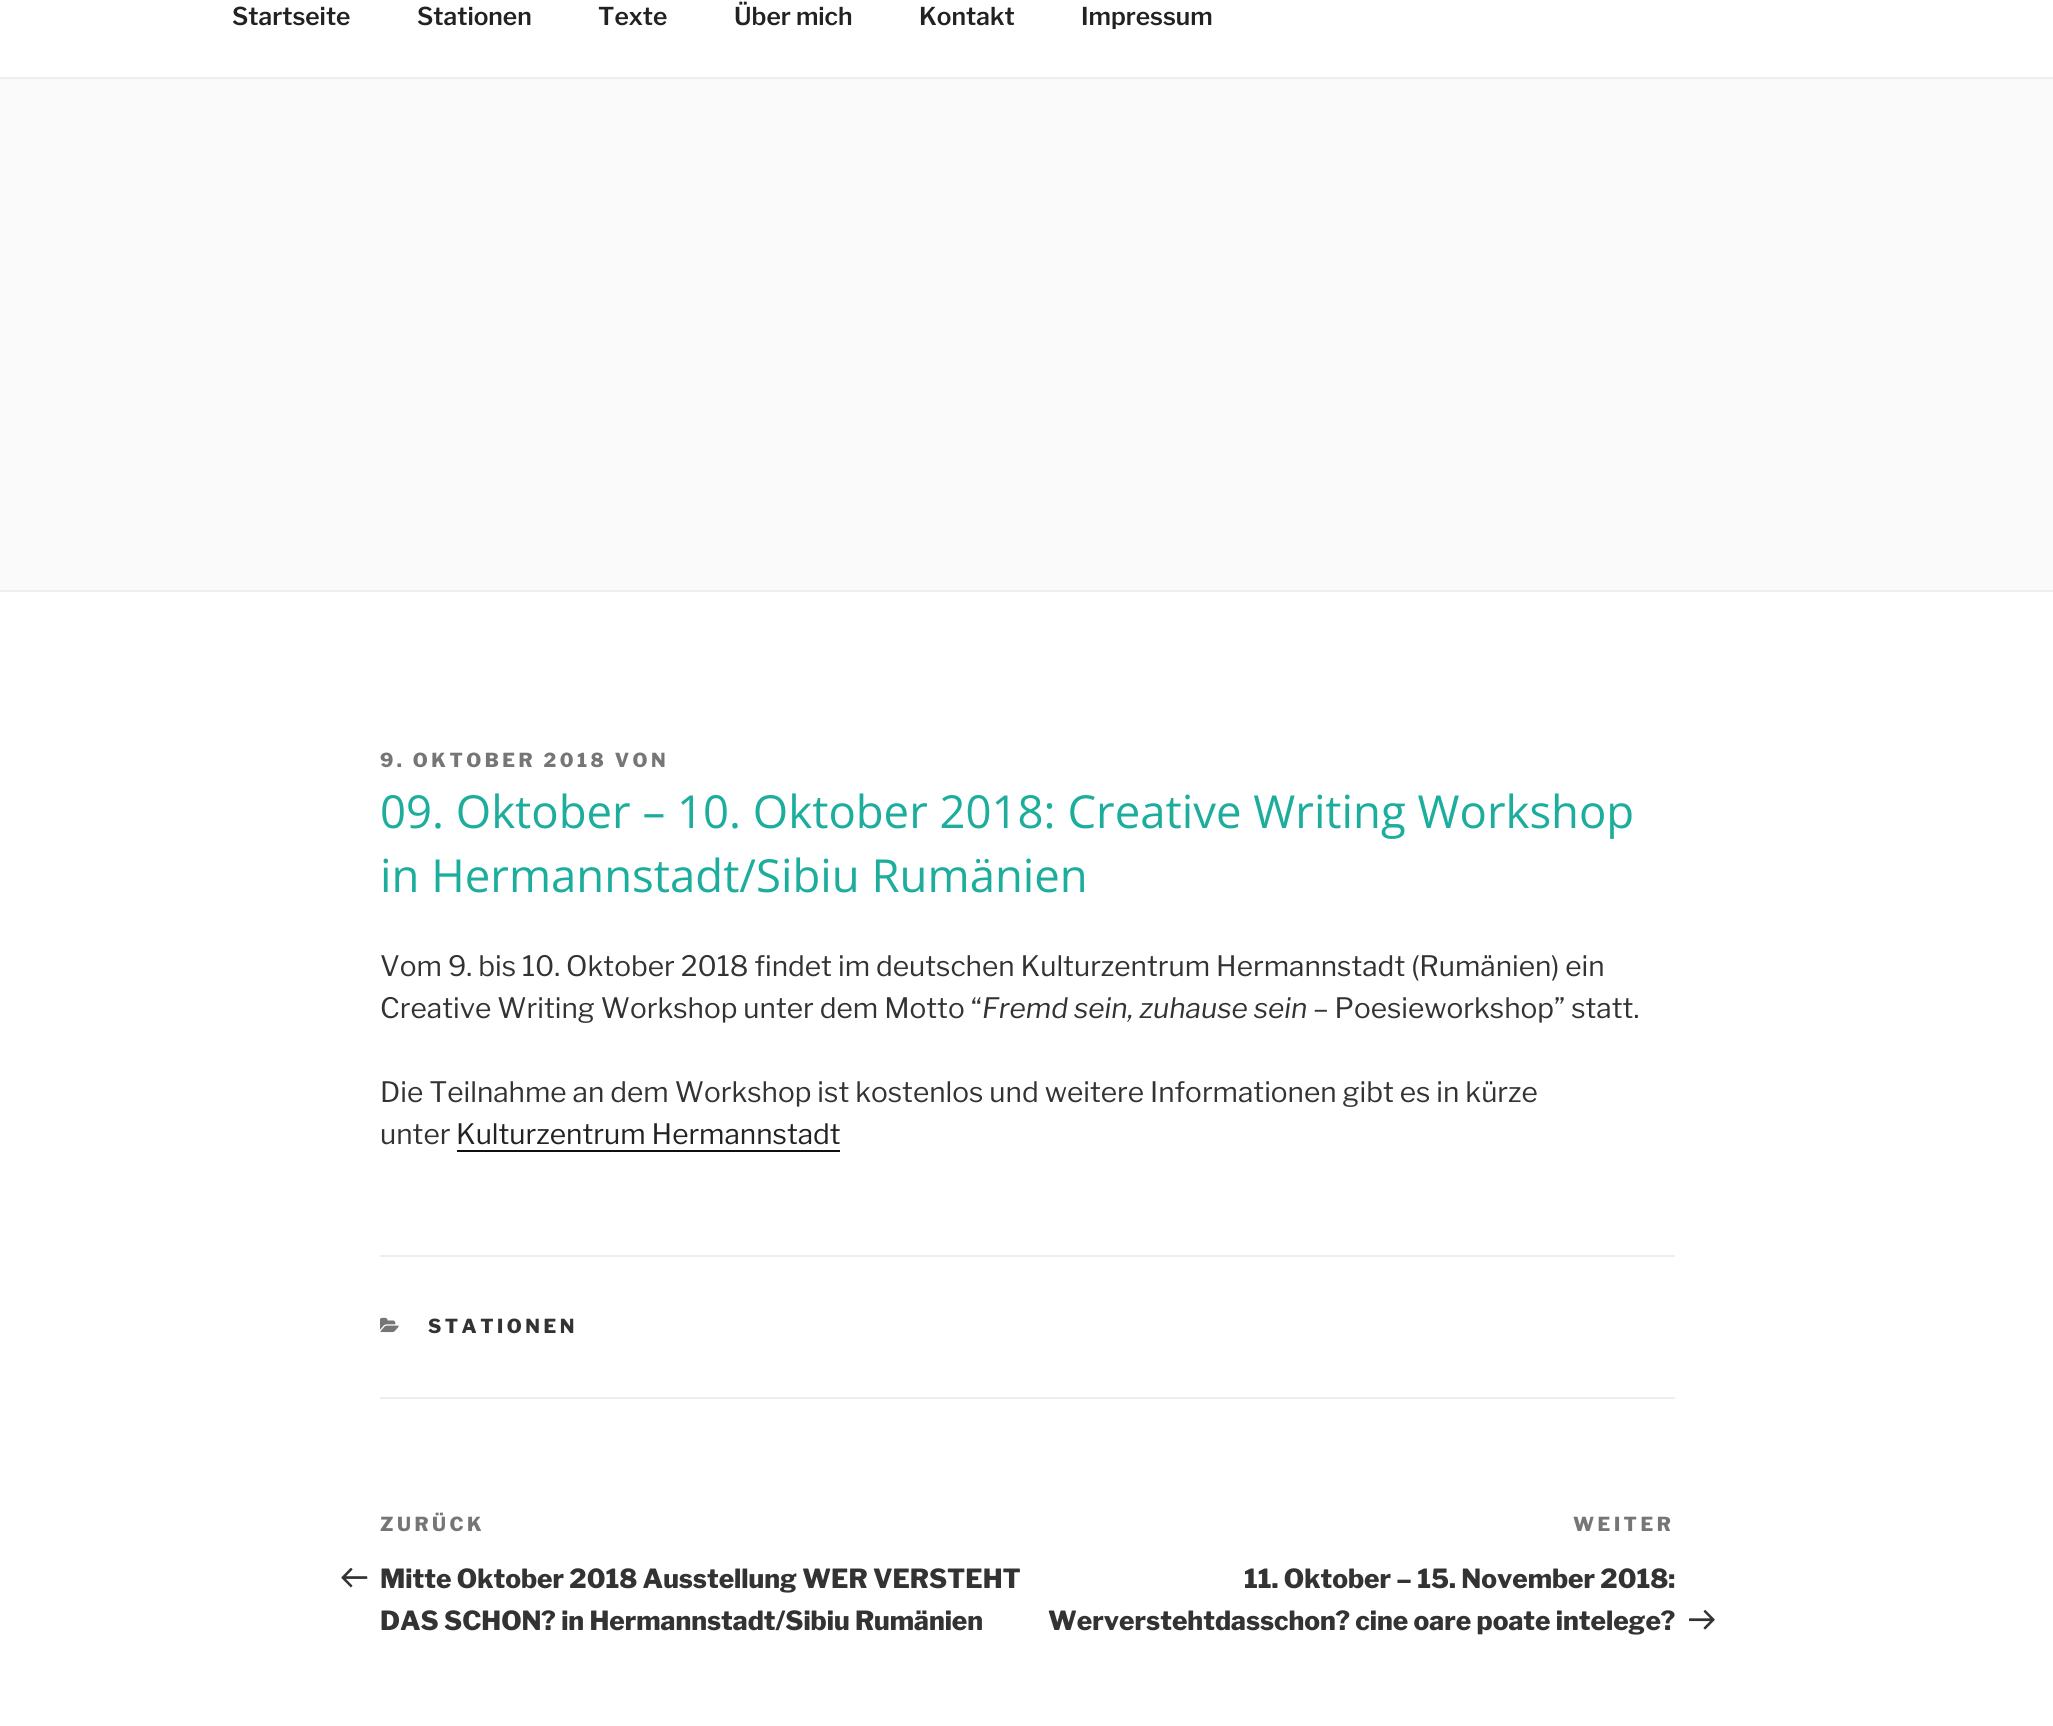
#include <cairo.h>
#include <math.h>
#include <stddef.h>

static cairo_t *ctx;

static void use_color(int r, int g, int b) {
    cairo_set_source_rgb(ctx, r / 255.0, g / 255.0, b / 255.0);
}

static void spaced_text(double x, double y, const char *s, double letter, double word) {
    cairo_move_to(ctx, x, y);
    while (*s) {
        char ch[5] = {0};
        int n = 0;
        do ch[n++] = *s++; while ((*s & 0xC0) == 0x80);
        cairo_show_text(ctx, ch);
        cairo_rel_move_to(ctx, letter + word * (*ch == ' '), 0);
    }
}

static void picture(const char *path, double x, double y, double w, double h) {
    cairo_surface_t *image = cairo_image_surface_create_from_png(path);
    cairo_save(ctx);
    cairo_set_source_surface(ctx, image, x, y);
    cairo_rectangle(ctx, x, y, w, h);
    cairo_fill(ctx);
    cairo_restore(ctx);
    cairo_surface_destroy(image);
}

int main(void) {
    cairo_surface_t *surface = cairo_image_surface_create(CAIRO_FORMAT_RGB24, 2053, 1726);
    ctx = cairo_create(surface);
    cairo_font_options_t *options = cairo_font_options_create();
    cairo_font_options_set_hint_metrics(options, CAIRO_HINT_METRICS_OFF);
    cairo_font_options_set_hint_style(options, CAIRO_HINT_STYLE_NONE);
    cairo_set_font_options(ctx, options);
    cairo_set_miter_limit(ctx, 4);
    use_color(255, 255, 255);
    cairo_paint(ctx);
    use_color(238, 238, 238);
    cairo_rectangle(ctx, 0, 77, 2053, 2);
    cairo_fill(ctx);
    cairo_select_font_face(ctx, "Libre Franklin SemiBold", CAIRO_FONT_SLANT_NORMAL, CAIRO_FONT_WEIGHT_NORMAL);
    cairo_set_font_size(ctx, 24.5);
    use_color(34, 34, 34);
    cairo_move_to(ctx, 232, 25);
    cairo_show_text(ctx, "Startseite");
    cairo_move_to(ctx, 417, 25);
    cairo_show_text(ctx, "Stationen");
    cairo_move_to(ctx, 598, 25);
    cairo_show_text(ctx, "Texte");
    cairo_move_to(ctx, 734, 25);
    cairo_show_text(ctx, "Über mich");
    cairo_move_to(ctx, 919, 25);
    cairo_show_text(ctx, "Kontakt");
    cairo_move_to(ctx, 1081, 25);
    cairo_show_text(ctx, "Impressum");
    use_color(250, 250, 250);
    cairo_rectangle(ctx, 0, 79, 2053, 511);
    cairo_fill(ctx);
    use_color(238, 238, 238);
    cairo_rectangle(ctx, 0, 590, 2053, 2);
    cairo_fill(ctx);
    cairo_select_font_face(ctx, "Libre Franklin ExtraBold", CAIRO_FONT_SLANT_NORMAL, CAIRO_FONT_WEIGHT_NORMAL);
    cairo_set_font_size(ctx, 19.25);
    use_color(118, 118, 118);
    spaced_text(380, 767, "9. OKTOBER 2018 VON", 3.5, 0);
    cairo_select_font_face(ctx, "Open Sans", CAIRO_FONT_SLANT_NORMAL, CAIRO_FONT_WEIGHT_NORMAL);
    cairo_set_font_size(ctx, 45.5);
    use_color(28, 173, 157);
    cairo_move_to(ctx, 380, 828);
    cairo_show_text(ctx, "09. Oktober – 10. Oktober 2018: Creative Writing Workshop");
    cairo_move_to(ctx, 380, 892);
    cairo_show_text(ctx, "in Hermannstadt/Sibiu Rumänien");
    cairo_select_font_face(ctx, "Libre Franklin", CAIRO_FONT_SLANT_NORMAL, CAIRO_FONT_WEIGHT_NORMAL);
    cairo_set_font_size(ctx, 28);
    use_color(51, 51, 51);
    cairo_move_to(ctx, 380, 976);
    cairo_show_text(ctx, "Vom 9. bis 10. Oktober 2018 findet im deutschen Kulturzentrum Hermannstadt (Rumänien) ein");
    cairo_move_to(ctx, 380, 1018);
    cairo_show_text(ctx, "Creative Writing Workshop unter dem Motto “");
    cairo_select_font_face(ctx, "Libre Franklin", CAIRO_FONT_SLANT_ITALIC, CAIRO_FONT_WEIGHT_NORMAL);
    cairo_move_to(ctx, 982, 1018);
    cairo_show_text(ctx, "Fremd sein, zuhause sein");
    cairo_select_font_face(ctx, "Libre Franklin", CAIRO_FONT_SLANT_NORMAL, CAIRO_FONT_WEIGHT_NORMAL);
    cairo_move_to(ctx, 1313, 1018);
    cairo_show_text(ctx, "– Poesieworkshop” statt.");
    cairo_move_to(ctx, 380, 1102);
    cairo_show_text(ctx, "Die Teilnahme an dem Workshop ist kostenlos und weitere Informationen gibt es in kürze");
    cairo_move_to(ctx, 380, 1144);
    cairo_show_text(ctx, "unter");
    use_color(34, 34, 34);
    cairo_move_to(ctx, 456, 1144);
    cairo_show_text(ctx, "Kulturzentrum Hermannstadt");
    use_color(15, 15, 15);
    cairo_rectangle(ctx, 457, 1150, 383, 2);
    cairo_fill(ctx);
    use_color(238, 238, 238);
    cairo_rectangle(ctx, 380, 1255, 1295, 2);
    cairo_fill(ctx);
    cairo_rectangle(ctx, 380, 1397, 1295, 2);
    cairo_fill(ctx);
    picture("img1.png", 380, 1317, 19, 16);
    cairo_select_font_face(ctx, "Libre Franklin ExtraBold", CAIRO_FONT_SLANT_NORMAL, CAIRO_FONT_WEIGHT_NORMAL);
    cairo_set_font_size(ctx, 19.25);
    use_color(51, 51, 51);
    spaced_text(428, 1333, "STATIONEN", 3.5, 0);
    use_color(118, 118, 118);
    spaced_text(380, 1531, "ZURÜCK", 3.5, 0);
    picture("img2.png", 341, 1567, 27, 21);
    cairo_set_font_size(ctx, 26.25);
    use_color(51, 51, 51);
    cairo_move_to(ctx, 380, 1588);
    cairo_show_text(ctx, "Mitte Oktober 2018 Ausstellung WER VERSTEHT");
    cairo_move_to(ctx, 380, 1630);
    cairo_show_text(ctx, "DAS SCHON? in Hermannstadt/Sibiu Rumänien");
    cairo_set_font_size(ctx, 19.25);
    use_color(118, 118, 118);
    spaced_text(1573, 1531, "WEITER", 3.5, 0);
    cairo_set_font_size(ctx, 26.25);
    use_color(51, 51, 51);
    cairo_move_to(ctx, 1244, 1588);
    cairo_show_text(ctx, "11. Oktober – 15. November 2018:");
    cairo_move_to(ctx, 1048, 1630);
    cairo_show_text(ctx, "Werverstehtdasschon? cine oare poate intelege?");
    picture("img3.png", 1689, 1609, 26, 21);
    cairo_surface_write_to_png(surface, "result.png");
    cairo_font_options_destroy(options);
    cairo_destroy(ctx);
    cairo_surface_destroy(surface);
    return 0;
}
